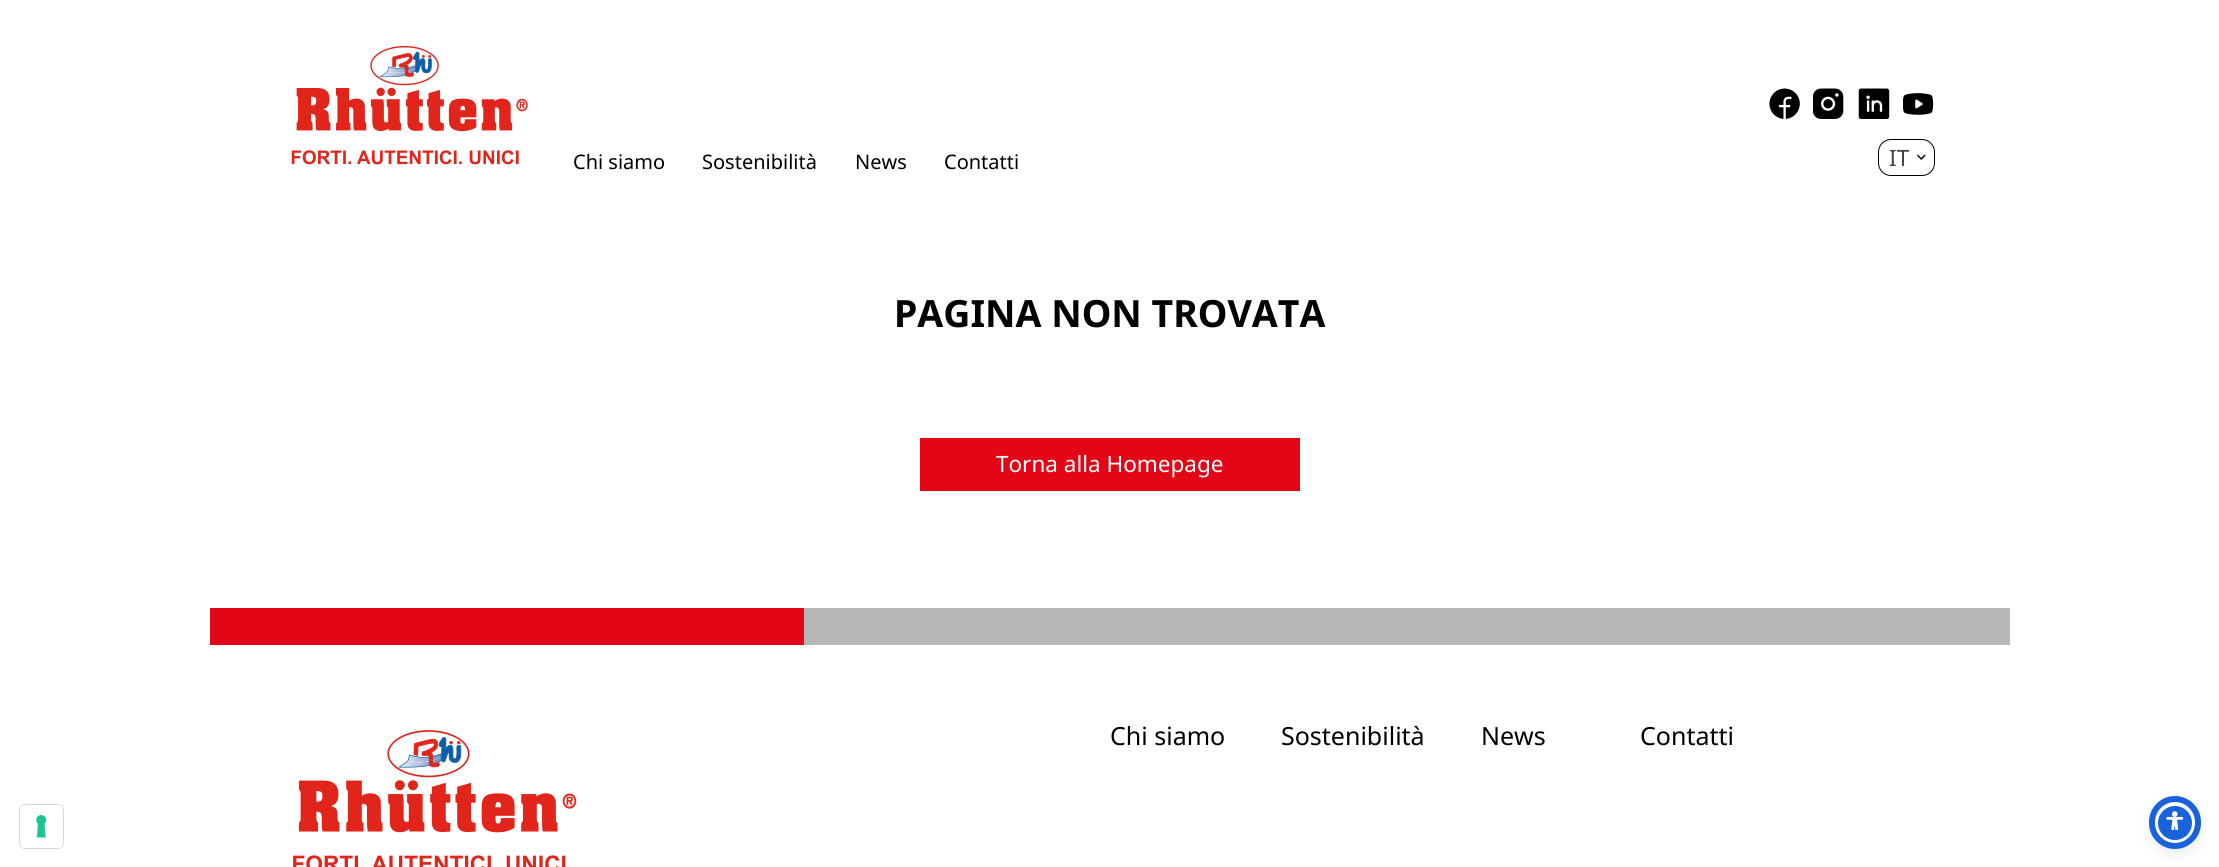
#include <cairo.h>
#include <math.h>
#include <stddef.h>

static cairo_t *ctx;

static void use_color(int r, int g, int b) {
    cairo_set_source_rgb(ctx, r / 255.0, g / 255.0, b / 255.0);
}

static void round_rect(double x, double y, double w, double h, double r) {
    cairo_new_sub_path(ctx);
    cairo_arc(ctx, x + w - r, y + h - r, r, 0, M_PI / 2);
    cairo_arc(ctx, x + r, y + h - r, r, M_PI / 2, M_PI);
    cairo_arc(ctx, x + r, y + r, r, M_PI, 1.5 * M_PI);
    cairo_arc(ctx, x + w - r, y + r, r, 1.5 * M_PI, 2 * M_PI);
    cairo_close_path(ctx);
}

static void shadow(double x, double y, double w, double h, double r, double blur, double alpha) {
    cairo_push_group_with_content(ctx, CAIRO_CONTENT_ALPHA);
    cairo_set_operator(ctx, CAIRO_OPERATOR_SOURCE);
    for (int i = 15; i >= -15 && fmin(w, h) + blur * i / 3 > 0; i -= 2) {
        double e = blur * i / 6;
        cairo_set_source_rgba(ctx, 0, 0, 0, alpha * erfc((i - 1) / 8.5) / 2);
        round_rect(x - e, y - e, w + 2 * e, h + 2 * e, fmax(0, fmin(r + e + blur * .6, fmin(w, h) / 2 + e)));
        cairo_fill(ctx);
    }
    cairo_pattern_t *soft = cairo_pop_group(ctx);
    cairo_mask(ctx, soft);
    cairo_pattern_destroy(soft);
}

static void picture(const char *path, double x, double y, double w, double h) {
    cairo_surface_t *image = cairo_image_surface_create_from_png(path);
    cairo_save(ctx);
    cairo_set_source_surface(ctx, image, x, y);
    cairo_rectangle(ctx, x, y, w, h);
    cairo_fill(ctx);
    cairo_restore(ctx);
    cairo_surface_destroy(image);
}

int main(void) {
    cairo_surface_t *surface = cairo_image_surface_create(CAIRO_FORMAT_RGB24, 2219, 867);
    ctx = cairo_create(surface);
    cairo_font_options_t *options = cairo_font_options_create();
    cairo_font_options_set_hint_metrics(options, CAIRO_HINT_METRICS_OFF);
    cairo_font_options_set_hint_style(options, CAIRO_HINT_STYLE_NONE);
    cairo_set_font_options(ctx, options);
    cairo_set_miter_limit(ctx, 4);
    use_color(255, 255, 255);
    cairo_paint(ctx);
    picture("img1.png", 291, 45, 237, 120);
    picture("img2.png", 1769, 88, 31, 31);
    picture("img3.png", 1813, 88, 31, 31);
    picture("img4.png", 1858, 88, 32, 31);
    picture("img5.png", 1903, 93, 31, 22);
    cairo_select_font_face(ctx, "Noto Sans", CAIRO_FONT_SLANT_NORMAL, CAIRO_FONT_WEIGHT_NORMAL);
    cairo_set_font_size(ctx, 20);
    use_color(0, 0, 0);
    cairo_move_to(ctx, 573, 169);
    cairo_show_text(ctx, "Chi siamo");
    cairo_move_to(ctx, 702, 169);
    cairo_show_text(ctx, "Sostenibilità");
    cairo_move_to(ctx, 855, 169);
    cairo_show_text(ctx, "News");
    cairo_move_to(ctx, 944, 169);
    cairo_show_text(ctx, "Contatti");
    round_rect(1878.5, 139.5, 56, 36, 12.5);
    cairo_set_line_width(ctx, 1);
    cairo_stroke(ctx);
    cairo_set_font_size(ctx, 22.5);
    use_color(68, 68, 68);
    cairo_move_to(ctx, 1889, 166);
    cairo_show_text(ctx, "IT");
    picture("img6.png", 1917, 154, 9, 6);
    cairo_select_font_face(ctx, "Noto Sans", CAIRO_FONT_SLANT_NORMAL, CAIRO_FONT_WEIGHT_BOLD);
    cairo_set_font_size(ctx, 37.5);
    use_color(0, 0, 0);
    cairo_move_to(ctx, 894, 327);
    cairo_show_text(ctx, "PAGINA NON TROVATA");
    use_color(227, 6, 22);
    cairo_rectangle(ctx, 920, 438, 380, 53);
    cairo_fill(ctx);
    cairo_select_font_face(ctx, "Noto Sans", CAIRO_FONT_SLANT_NORMAL, CAIRO_FONT_WEIGHT_NORMAL);
    cairo_set_font_size(ctx, 22.5);
    use_color(255, 255, 255);
    cairo_move_to(ctx, 996, 472);
    cairo_show_text(ctx, "Torna alla Homepage");
    use_color(227, 6, 22);
    cairo_rectangle(ctx, 210, 608, 594, 37);
    cairo_fill(ctx);
    use_color(183, 183, 183);
    cairo_rectangle(ctx, 804, 608, 1206, 37);
    cairo_fill(ctx);
    picture("img7.png", 293, 730, 284, 137);
    cairo_set_font_size(ctx, 25);
    use_color(0, 0, 0);
    cairo_move_to(ctx, 1110, 745);
    cairo_show_text(ctx, "Chi siamo");
    cairo_move_to(ctx, 1281, 745);
    cairo_show_text(ctx, "Sostenibilità");
    cairo_move_to(ctx, 1481, 745);
    cairo_show_text(ctx, "News");
    cairo_move_to(ctx, 1640, 745);
    cairo_show_text(ctx, "Contatti");
    round_rect(19.5, 804.5, 44, 44, 5.5);
    use_color(217, 217, 217);
    cairo_stroke(ctx);
    use_color(255, 255, 255);
    round_rect(20, 805, 43, 43, 5);
    cairo_fill(ctx);
    picture("img8.png", 36, 815, 11, 23);
    use_color(93, 100, 148);
    shadow(2155, 805, 40, 40, 20, 2.5, 0.2);
    use_color(37, 44, 97);
    shadow(2155, 809, 40, 40, 20, 9.5, 0.15);
    use_color(24, 99, 220);
    cairo_arc(ctx, 2175, 823, 18.5, 0, 2 * M_PI);
    cairo_fill_preserve(ctx);
    use_color(255, 255, 255);
    cairo_set_line_width(ctx, 3);
    cairo_stroke(ctx);
    round_rect(2152, 799, 46, 47, 23);
    use_color(24, 99, 220);
    cairo_set_line_width(ctx, 6);
    cairo_stroke(ctx);
    picture("img9.png", 2166, 811, 18, 19);
    cairo_surface_write_to_png(surface, "result.png");
    cairo_font_options_destroy(options);
    cairo_destroy(ctx);
    cairo_surface_destroy(surface);
    return 0;
}
